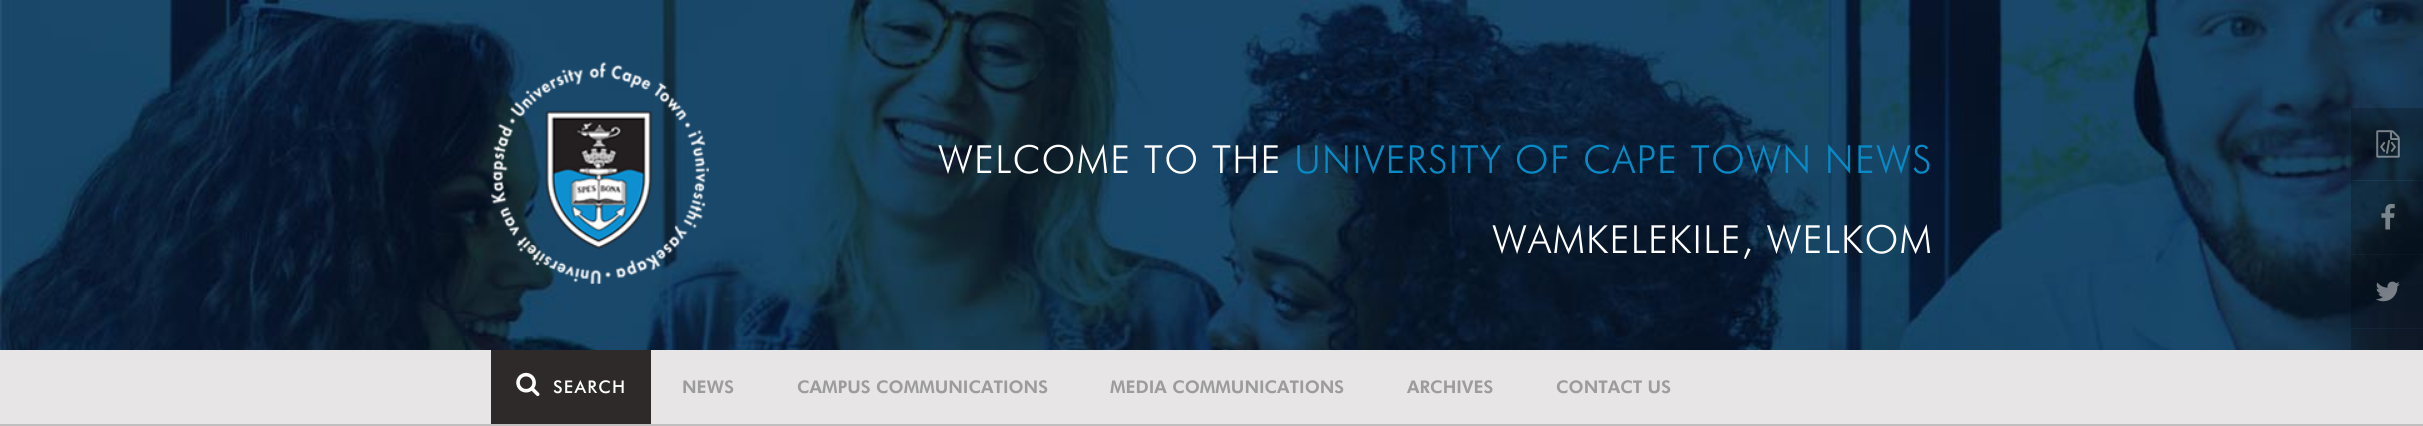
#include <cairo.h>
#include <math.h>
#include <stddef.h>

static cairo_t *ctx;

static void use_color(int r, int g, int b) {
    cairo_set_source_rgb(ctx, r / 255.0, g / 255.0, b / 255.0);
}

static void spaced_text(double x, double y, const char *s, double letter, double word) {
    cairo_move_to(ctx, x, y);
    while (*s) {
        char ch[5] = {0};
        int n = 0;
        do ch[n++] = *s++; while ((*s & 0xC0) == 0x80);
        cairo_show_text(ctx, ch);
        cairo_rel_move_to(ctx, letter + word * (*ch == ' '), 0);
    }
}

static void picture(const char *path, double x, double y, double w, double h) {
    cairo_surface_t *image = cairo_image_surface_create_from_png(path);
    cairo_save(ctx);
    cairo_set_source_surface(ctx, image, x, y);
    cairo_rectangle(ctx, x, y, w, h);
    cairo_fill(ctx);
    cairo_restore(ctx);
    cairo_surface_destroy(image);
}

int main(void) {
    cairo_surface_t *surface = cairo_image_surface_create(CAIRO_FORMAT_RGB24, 2423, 426);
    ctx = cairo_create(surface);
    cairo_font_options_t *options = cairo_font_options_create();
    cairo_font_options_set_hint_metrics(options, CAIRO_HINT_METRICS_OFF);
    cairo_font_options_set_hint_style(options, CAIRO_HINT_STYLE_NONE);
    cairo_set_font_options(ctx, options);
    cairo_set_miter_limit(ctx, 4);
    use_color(255, 255, 255);
    cairo_paint(ctx);
    picture("img1.png", 0, 0, 2423, 350);
    picture("img2.png", 491, 62, 218, 222);
    cairo_select_font_face(ctx, "Futura Light", CAIRO_FONT_SLANT_NORMAL, CAIRO_FONT_WEIGHT_NORMAL);
    cairo_set_font_size(ctx, 38.75);
    use_color(255, 255, 255);
    spaced_text(938, 173, "WELCOME TO THE", 1.25, 0);
    use_color(6, 139, 198);
    spaced_text(1294, 173, "UNIVERSITY OF CAPE TOWN NEWS", 1.25, 0);
    use_color(255, 255, 255);
    spaced_text(1492, 253, "WAMKELEKILE, WELKOM", 1.25, 0);
    use_color(231, 229, 229);
    cairo_rectangle(ctx, 0, 350, 2423, 74);
    cairo_fill(ctx);
    use_color(46, 42, 42);
    cairo_rectangle(ctx, 491, 350, 160, 74);
    cairo_fill(ctx);
    picture("img3.png", 516, 372, 24, 25);
    cairo_select_font_face(ctx, "Futura Medium", CAIRO_FONT_SLANT_NORMAL, CAIRO_FONT_WEIGHT_NORMAL);
    cairo_set_font_size(ctx, 17.5);
    use_color(255, 255, 255);
    spaced_text(553, 393, "SEARCH", 1.25, 0);
    cairo_select_font_face(ctx, "Futura Black", CAIRO_FONT_SLANT_NORMAL, CAIRO_FONT_WEIGHT_NORMAL);
    use_color(156, 156, 156);
    cairo_move_to(ctx, 682, 393);
    cairo_show_text(ctx, "NEWS");
    cairo_move_to(ctx, 797, 393);
    cairo_show_text(ctx, "CAMPUS COMMUNICATIONS");
    cairo_move_to(ctx, 1110, 393);
    cairo_show_text(ctx, "MEDIA COMMUNICATIONS");
    cairo_move_to(ctx, 1407, 393);
    cairo_show_text(ctx, "ARCHIVES");
    cairo_move_to(ctx, 1556, 393);
    cairo_show_text(ctx, "CONTACT US");
    use_color(191, 191, 191);
    cairo_rectangle(ctx, 0, 424, 2423, 2);
    cairo_fill(ctx);
    cairo_set_source_rgba(ctx, 0, 0, 0, 0.23);
    cairo_rectangle(ctx, 2351, 108, 72, 72);
    cairo_fill(ctx);
    picture("img4.png", 2376, 130, 24, 28);
    cairo_rectangle(ctx, 2351, 181, 72, 73);
    cairo_fill(ctx);
    picture("img5.png", 2381, 203, 14, 27);
    cairo_rectangle(ctx, 2351, 255, 72, 73);
    cairo_fill(ctx);
    picture("img6.png", 2376, 281, 24, 21);
    cairo_rectangle(ctx, 2351, 329, 72, 21);
    cairo_fill(ctx);
    cairo_surface_write_to_png(surface, "result.png");
    cairo_font_options_destroy(options);
    cairo_destroy(ctx);
    cairo_surface_destroy(surface);
    return 0;
}
